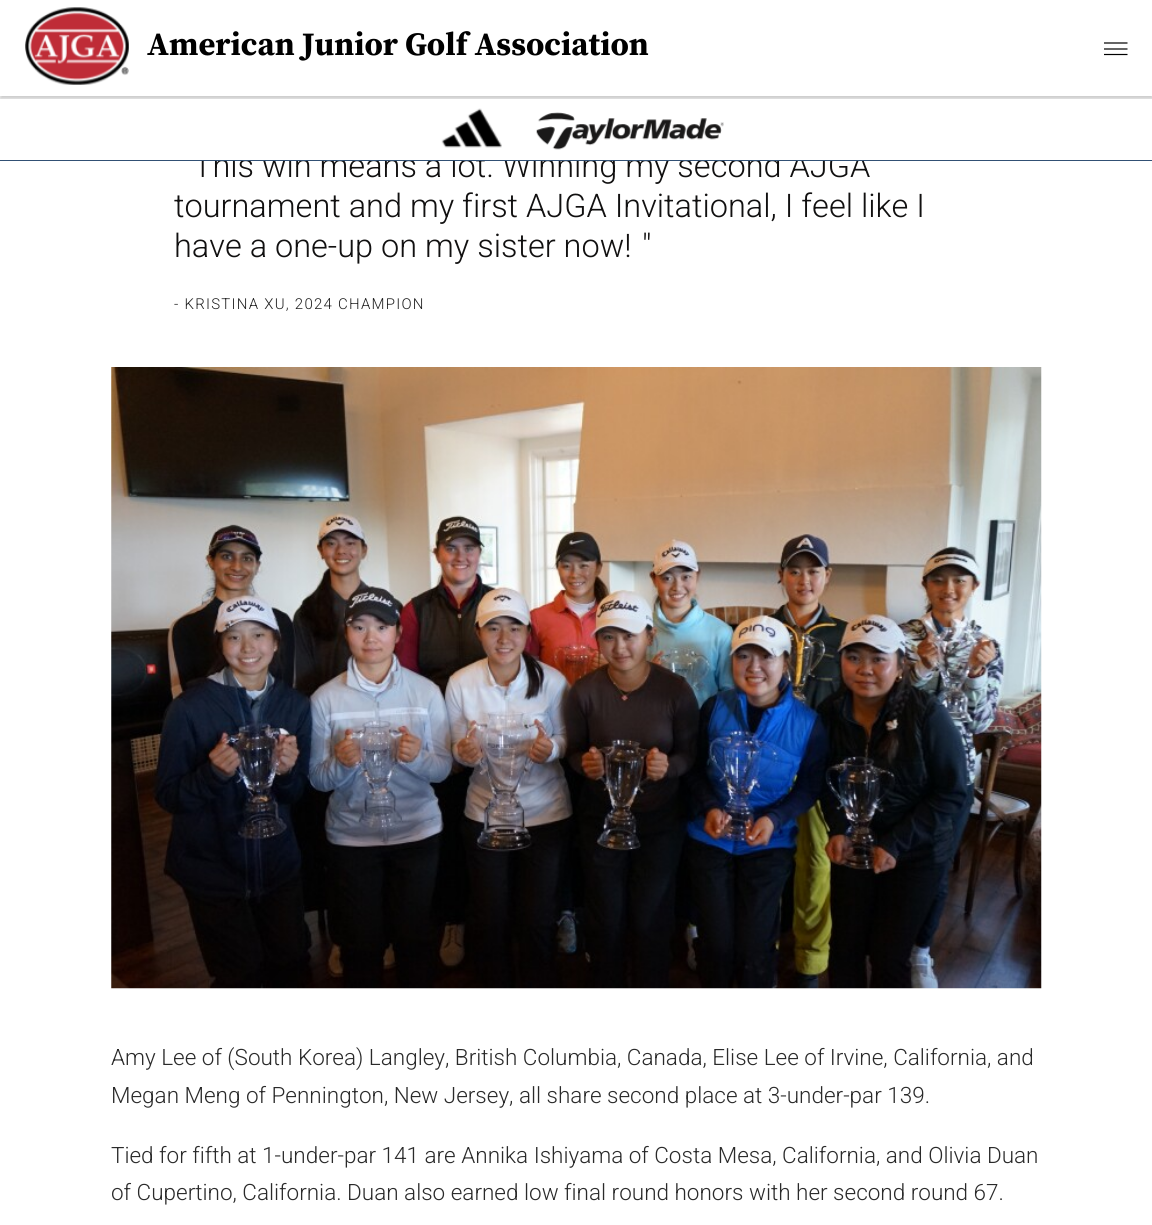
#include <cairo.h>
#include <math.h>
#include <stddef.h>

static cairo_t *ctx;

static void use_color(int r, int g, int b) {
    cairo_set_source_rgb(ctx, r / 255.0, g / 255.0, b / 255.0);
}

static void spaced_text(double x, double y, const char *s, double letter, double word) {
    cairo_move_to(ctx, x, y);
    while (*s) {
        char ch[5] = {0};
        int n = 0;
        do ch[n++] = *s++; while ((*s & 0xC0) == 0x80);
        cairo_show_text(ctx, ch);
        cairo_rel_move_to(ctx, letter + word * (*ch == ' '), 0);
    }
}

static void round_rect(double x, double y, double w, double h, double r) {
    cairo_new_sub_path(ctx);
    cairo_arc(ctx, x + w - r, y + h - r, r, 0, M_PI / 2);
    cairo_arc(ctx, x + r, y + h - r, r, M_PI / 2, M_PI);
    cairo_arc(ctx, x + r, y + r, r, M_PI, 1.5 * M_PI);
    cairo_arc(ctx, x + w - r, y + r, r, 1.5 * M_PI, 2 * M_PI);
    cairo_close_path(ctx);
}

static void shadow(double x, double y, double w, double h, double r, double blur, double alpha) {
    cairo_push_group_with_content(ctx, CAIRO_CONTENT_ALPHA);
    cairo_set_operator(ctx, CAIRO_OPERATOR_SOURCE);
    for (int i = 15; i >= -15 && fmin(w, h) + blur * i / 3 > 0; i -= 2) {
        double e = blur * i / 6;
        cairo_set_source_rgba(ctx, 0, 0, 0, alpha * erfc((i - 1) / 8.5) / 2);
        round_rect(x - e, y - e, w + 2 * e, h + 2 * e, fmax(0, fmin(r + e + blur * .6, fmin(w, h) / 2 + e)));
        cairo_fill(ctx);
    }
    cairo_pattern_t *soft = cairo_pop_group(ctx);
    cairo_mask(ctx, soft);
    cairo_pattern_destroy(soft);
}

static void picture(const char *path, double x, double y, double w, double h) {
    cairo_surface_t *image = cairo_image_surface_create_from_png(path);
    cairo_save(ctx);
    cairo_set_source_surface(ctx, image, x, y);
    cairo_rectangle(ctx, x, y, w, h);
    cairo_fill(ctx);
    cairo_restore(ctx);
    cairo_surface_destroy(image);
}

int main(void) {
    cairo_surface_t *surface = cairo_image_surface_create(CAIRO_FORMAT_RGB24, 1152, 1225);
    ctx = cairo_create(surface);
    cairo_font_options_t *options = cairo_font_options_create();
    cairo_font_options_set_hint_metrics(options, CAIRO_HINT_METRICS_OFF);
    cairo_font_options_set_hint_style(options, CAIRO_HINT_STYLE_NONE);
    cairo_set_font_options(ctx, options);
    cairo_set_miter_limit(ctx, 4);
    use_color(255, 255, 255);
    cairo_paint(ctx);
    cairo_save(ctx);
    cairo_rectangle(ctx, 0, 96, 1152, 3);
    cairo_clip(ctx);
    use_color(0, 0, 0);
    shadow(0, 4, 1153, 95, 0, 2.5, 0.23);
    cairo_restore(ctx);
    picture("img1.png", 25, 7, 104, 78);
    cairo_select_font_face(ctx, "Source Serif Pro", CAIRO_FONT_SLANT_NORMAL, CAIRO_FONT_WEIGHT_BOLD);
    cairo_set_font_size(ctx, 32.5);
    use_color(0, 0, 0);
    cairo_move_to(ctx, 147, 55);
    cairo_show_text(ctx, "American Junior Golf Association");
    cairo_new_path(ctx);
    cairo_move_to(ctx, 1104, 43);
    cairo_line_to(ctx, 1127.5, 43);
    cairo_move_to(ctx, 1104, 49);
    cairo_line_to(ctx, 1127.5, 49);
    cairo_move_to(ctx, 1104, 54.5);
    cairo_line_to(ctx, 1127.5, 54.5);
    cairo_set_line_width(ctx, 1.2);
    cairo_stroke(ctx);
    cairo_select_font_face(ctx, "Roboto Light", CAIRO_FONT_SLANT_NORMAL, CAIRO_FONT_WEIGHT_NORMAL);
    use_color(17, 16, 16);
    cairo_move_to(ctx, 193, 177);
    cairo_show_text(ctx, "This win means a lot. Winning my second AJGA");
    use_color(255, 255, 255);
    cairo_rectangle(ctx, 0, 99, 1152, 61);
    cairo_fill(ctx);
    use_color(49, 80, 116);
    cairo_rectangle(ctx, 0, 160, 1152, 1);
    cairo_fill(ctx);
    picture("img2.png", 441, 108, 61, 40);
    picture("img3.png", 536, 112, 188, 38);
    use_color(17, 16, 16);
    cairo_move_to(ctx, 174, 217);
    cairo_show_text(ctx, "tournament and my first AJGA Invitational, I feel like I");
    cairo_move_to(ctx, 174, 257);
    cairo_show_text(ctx, "have a one-up on my sister now!");
    cairo_move_to(ctx, 642, 257);
    cairo_show_text(ctx, "\"");
    cairo_set_font_size(ctx, 15);
    use_color(32, 32, 32);
    spaced_text(174, 309, "- KRISTINA XU, 2024 CHAMPION", 1.25, 0);
    picture("img4.png", 111, 367, 931, 622);
    cairo_set_font_size(ctx, 22.5);
    use_color(42, 42, 42);
    cairo_move_to(ctx, 111, 1065);
    cairo_show_text(ctx, "Amy Lee of (South Korea) Langley, British Columbia, Canada, Elise Lee of Irvine, California, and");
    cairo_move_to(ctx, 111, 1103);
    cairo_show_text(ctx, "Megan Meng of Pennington, New Jersey, all share second place at 3-under-par 139.");
    cairo_move_to(ctx, 111, 1163);
    cairo_show_text(ctx, "Tied for fifth at 1-under-par 141 are Annika Ishiyama of Costa Mesa, California, and Olivia Duan");
    cairo_move_to(ctx, 111, 1200);
    cairo_show_text(ctx, "of Cupertino, California. Duan also earned low final round honors with her second round 67.");
    cairo_surface_write_to_png(surface, "result.png");
    cairo_font_options_destroy(options);
    cairo_destroy(ctx);
    cairo_surface_destroy(surface);
    return 0;
}
